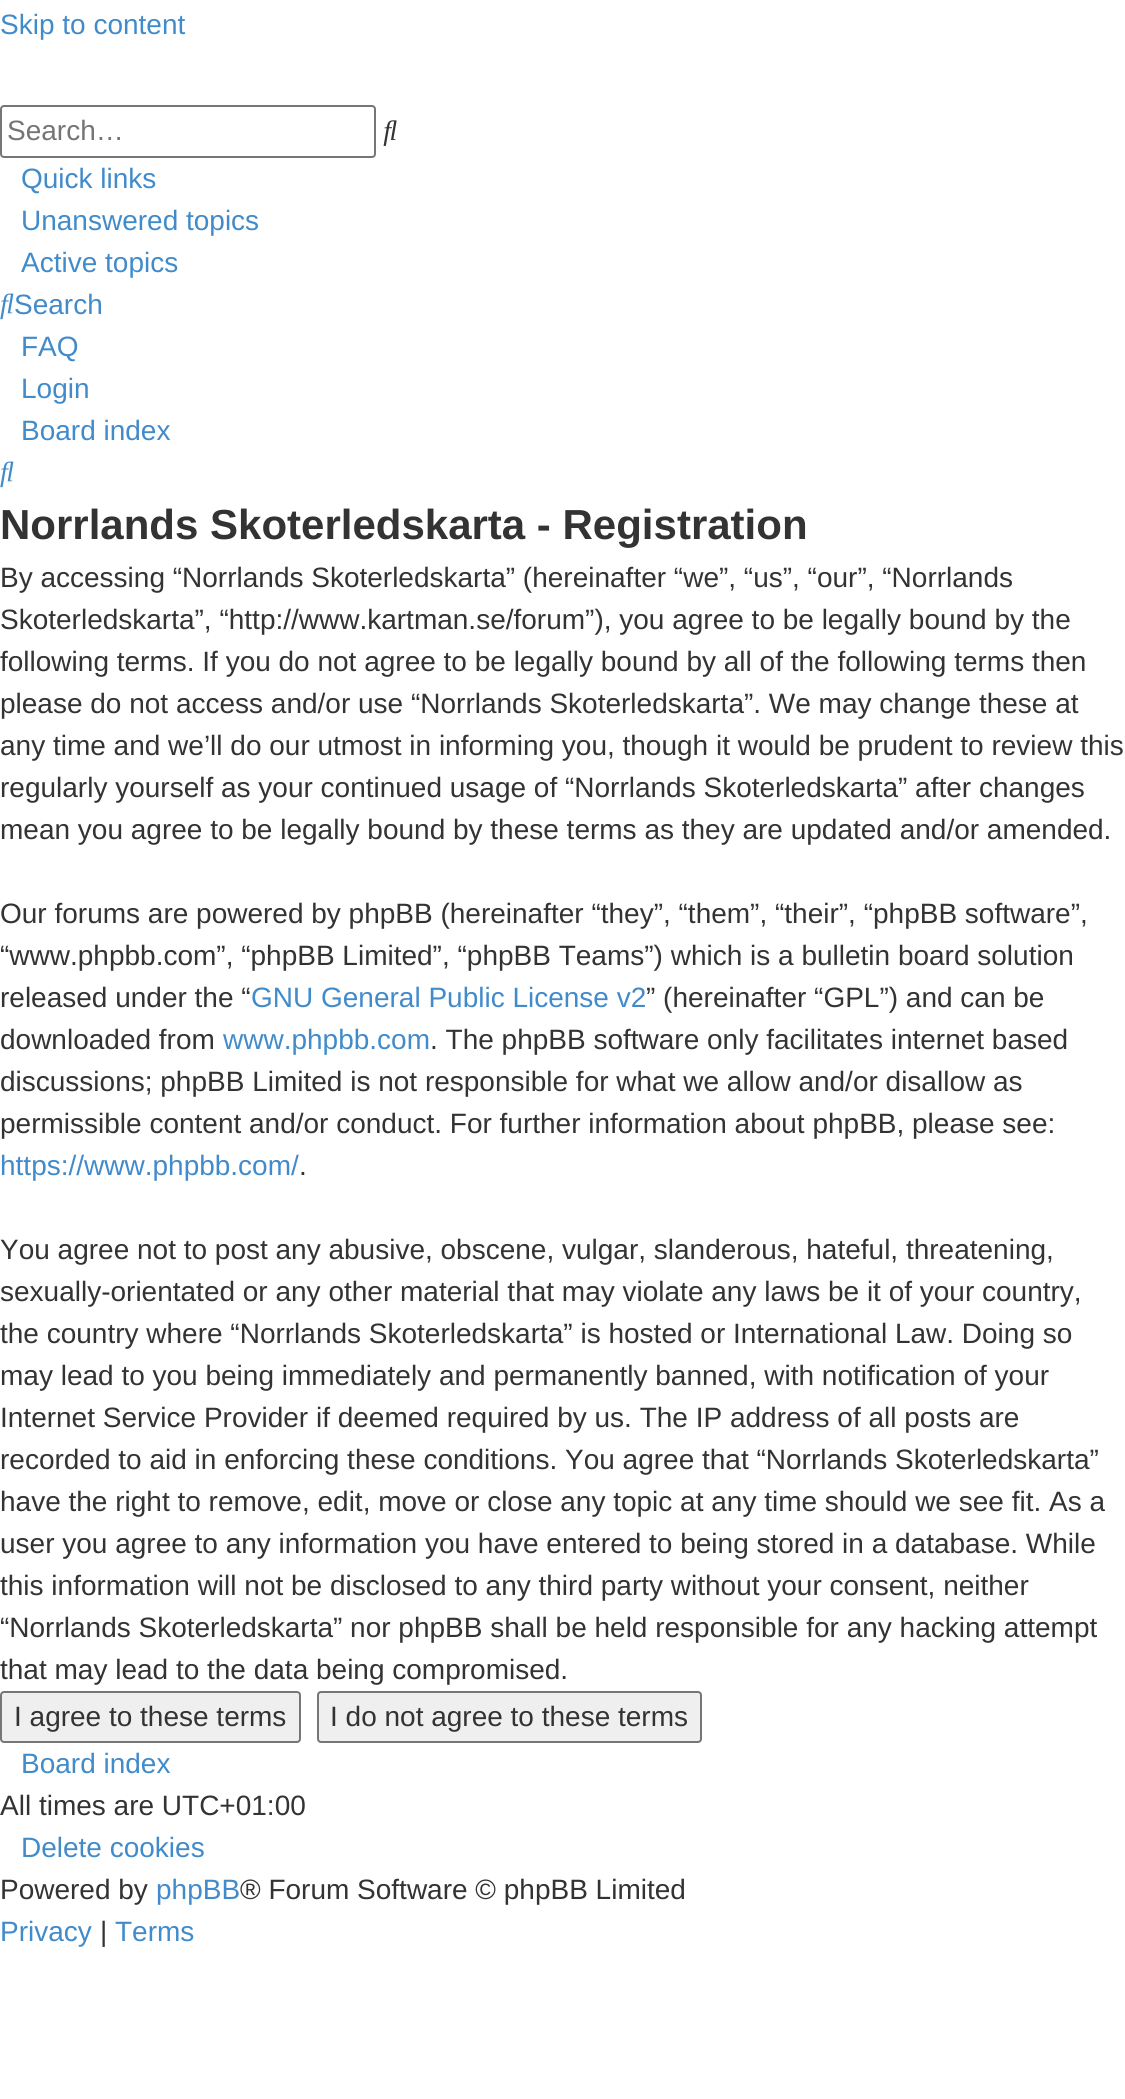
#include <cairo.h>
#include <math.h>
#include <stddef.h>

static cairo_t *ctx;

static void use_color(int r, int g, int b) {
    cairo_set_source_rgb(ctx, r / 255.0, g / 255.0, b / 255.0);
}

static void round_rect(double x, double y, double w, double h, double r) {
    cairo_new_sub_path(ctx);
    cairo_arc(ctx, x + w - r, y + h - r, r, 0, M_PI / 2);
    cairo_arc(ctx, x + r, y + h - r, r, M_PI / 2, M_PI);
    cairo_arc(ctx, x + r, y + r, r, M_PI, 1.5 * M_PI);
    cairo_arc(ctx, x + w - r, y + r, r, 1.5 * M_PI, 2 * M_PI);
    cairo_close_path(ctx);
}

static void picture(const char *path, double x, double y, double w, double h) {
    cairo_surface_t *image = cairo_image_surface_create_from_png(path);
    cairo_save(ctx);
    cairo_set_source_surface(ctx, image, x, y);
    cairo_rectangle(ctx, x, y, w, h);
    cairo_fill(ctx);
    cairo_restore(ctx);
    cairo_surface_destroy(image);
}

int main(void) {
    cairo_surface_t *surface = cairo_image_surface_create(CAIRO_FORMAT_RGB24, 1125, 2099);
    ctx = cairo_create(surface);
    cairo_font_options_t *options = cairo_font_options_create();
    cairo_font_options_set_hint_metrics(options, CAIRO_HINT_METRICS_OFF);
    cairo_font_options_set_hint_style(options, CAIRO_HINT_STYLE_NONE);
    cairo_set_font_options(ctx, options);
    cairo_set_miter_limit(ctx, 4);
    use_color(255, 255, 255);
    cairo_paint(ctx);
    cairo_select_font_face(ctx, "Liberation Sans", CAIRO_FONT_SLANT_NORMAL, CAIRO_FONT_WEIGHT_NORMAL);
    cairo_set_font_size(ctx, 28);
    use_color(66, 139, 202);
    cairo_move_to(ctx, 0, 34);
    cairo_show_text(ctx, "Skip to content");
    round_rect(1, 106, 374, 51, 3);
    use_color(118, 118, 118);
    cairo_stroke(ctx);
    use_color(117, 117, 117);
    cairo_move_to(ctx, 7, 140);
    cairo_show_text(ctx, "Search…");
    picture("img1.png", 383, 120, 14, 26);
    use_color(66, 139, 202);
    cairo_move_to(ctx, 21, 188);
    cairo_show_text(ctx, "Quick links");
    cairo_move_to(ctx, 21, 230);
    cairo_show_text(ctx, "Unanswered topics");
    cairo_move_to(ctx, 21, 272);
    cairo_show_text(ctx, "Active topics");
    picture("img2.png", 0, 293, 14, 27);
    cairo_move_to(ctx, 14, 314);
    cairo_show_text(ctx, "Search");
    cairo_move_to(ctx, 21, 356);
    cairo_show_text(ctx, "FAQ");
    cairo_move_to(ctx, 21, 398);
    cairo_show_text(ctx, "Login");
    cairo_move_to(ctx, 21, 440);
    cairo_show_text(ctx, "Board index");
    picture("img2.png", 0, 461, 14, 27);
    cairo_select_font_face(ctx, "Liberation Sans", CAIRO_FONT_SLANT_NORMAL, CAIRO_FONT_WEIGHT_BOLD);
    cairo_set_font_size(ctx, 42);
    use_color(51, 51, 51);
    cairo_move_to(ctx, 0, 539);
    cairo_show_text(ctx, "Norrlands Skoterledskarta - Registration");
    cairo_select_font_face(ctx, "Liberation Sans", CAIRO_FONT_SLANT_NORMAL, CAIRO_FONT_WEIGHT_NORMAL);
    cairo_set_font_size(ctx, 28);
    cairo_move_to(ctx, 0, 587);
    cairo_show_text(ctx, "By accessing “Norrlands Skoterledskarta” (hereinafter “we”, “us”, “our”, “Norrlands");
    cairo_move_to(ctx, 0, 629);
    cairo_show_text(ctx, "Skoterledskarta”, “http://www.kartman.se/forum”), you agree to be legally bound by the");
    cairo_move_to(ctx, 0, 671);
    cairo_show_text(ctx, "following terms. If you do not agree to be legally bound by all of the following terms then");
    cairo_move_to(ctx, 0, 713);
    cairo_show_text(ctx, "please do not access and/or use “Norrlands Skoterledskarta”. We may change these at");
    cairo_move_to(ctx, 0, 755);
    cairo_show_text(ctx, "any time and we’ll do our utmost in informing you, though it would be prudent to review this");
    cairo_move_to(ctx, 0, 797);
    cairo_show_text(ctx, "regularly yourself as your continued usage of “Norrlands Skoterledskarta” after changes");
    cairo_move_to(ctx, 0, 839);
    cairo_show_text(ctx, "mean you agree to be legally bound by these terms as they are updated and/or amended.");
    cairo_move_to(ctx, 0, 923);
    cairo_show_text(ctx, "Our forums are powered by phpBB (hereinafter “they”, “them”, “their”, “phpBB software”,");
    cairo_move_to(ctx, 0, 965);
    cairo_show_text(ctx, "“www.phpbb.com”, “phpBB Limited”, “phpBB Teams”) which is a bulletin board solution");
    cairo_move_to(ctx, 0, 1007);
    cairo_show_text(ctx, "released under the “");
    use_color(66, 139, 202);
    cairo_move_to(ctx, 251, 1007);
    cairo_show_text(ctx, "GNU General Public License v2");
    use_color(51, 51, 51);
    cairo_move_to(ctx, 646, 1007);
    cairo_show_text(ctx, "” (hereinafter “GPL”) and can be");
    cairo_move_to(ctx, 0, 1049);
    cairo_show_text(ctx, "downloaded from");
    use_color(66, 139, 202);
    cairo_move_to(ctx, 223, 1049);
    cairo_show_text(ctx, "www.phpbb.com");
    use_color(51, 51, 51);
    cairo_move_to(ctx, 430, 1049);
    cairo_show_text(ctx, ". The phpBB software only facilitates internet based");
    cairo_move_to(ctx, 0, 1091);
    cairo_show_text(ctx, "discussions; phpBB Limited is not responsible for what we allow and/or disallow as");
    cairo_move_to(ctx, 0, 1133);
    cairo_show_text(ctx, "permissible content and/or conduct. For further information about phpBB, please see:");
    use_color(66, 139, 202);
    cairo_move_to(ctx, 0, 1175);
    cairo_show_text(ctx, "https://www.phpbb.com/");
    use_color(51, 51, 51);
    cairo_move_to(ctx, 299, 1175);
    cairo_show_text(ctx, ".");
    cairo_move_to(ctx, 0, 1259);
    cairo_show_text(ctx, "You agree not to post any abusive, obscene, vulgar, slanderous, hateful, threatening,");
    cairo_move_to(ctx, 0, 1301);
    cairo_show_text(ctx, "sexually-orientated or any other material that may violate any laws be it of your country,");
    cairo_move_to(ctx, 0, 1343);
    cairo_show_text(ctx, "the country where “Norrlands Skoterledskarta” is hosted or International Law. Doing so");
    cairo_move_to(ctx, 0, 1385);
    cairo_show_text(ctx, "may lead to you being immediately and permanently banned, with notification of your");
    cairo_move_to(ctx, 0, 1427);
    cairo_show_text(ctx, "Internet Service Provider if deemed required by us. The IP address of all posts are");
    cairo_move_to(ctx, 0, 1469);
    cairo_show_text(ctx, "recorded to aid in enforcing these conditions. You agree that “Norrlands Skoterledskarta”");
    cairo_move_to(ctx, 0, 1511);
    cairo_show_text(ctx, "have the right to remove, edit, move or close any topic at any time should we see fit. As a");
    cairo_move_to(ctx, 0, 1553);
    cairo_show_text(ctx, "user you agree to any information you have entered to being stored in a database. While");
    cairo_move_to(ctx, 0, 1595);
    cairo_show_text(ctx, "this information will not be disclosed to any third party without your consent, neither");
    cairo_move_to(ctx, 0, 1637);
    cairo_show_text(ctx, "“Norrlands Skoterledskarta” nor phpBB shall be held responsible for any hacking attempt");
    cairo_move_to(ctx, 0, 1679);
    cairo_show_text(ctx, "that may lead to the data being compromised.");
    use_color(239, 239, 239);
    round_rect(1, 1692, 299, 50, 3);
    cairo_fill_preserve(ctx);
    use_color(118, 118, 118);
    cairo_stroke(ctx);
    use_color(51, 51, 51);
    cairo_move_to(ctx, 14, 1726);
    cairo_show_text(ctx, "I agree to these terms");
    use_color(239, 239, 239);
    round_rect(318, 1692, 383, 50, 3);
    cairo_fill_preserve(ctx);
    use_color(118, 118, 118);
    cairo_stroke(ctx);
    use_color(51, 51, 51);
    cairo_move_to(ctx, 330, 1726);
    cairo_show_text(ctx, "I do not agree to these terms");
    use_color(66, 139, 202);
    cairo_move_to(ctx, 21, 1773);
    cairo_show_text(ctx, "Board index");
    use_color(51, 51, 51);
    cairo_move_to(ctx, 0, 1815);
    cairo_show_text(ctx, "All times are UTC+01:00");
    use_color(66, 139, 202);
    cairo_move_to(ctx, 21, 1857);
    cairo_show_text(ctx, "Delete cookies");
    use_color(51, 51, 51);
    cairo_move_to(ctx, 0, 1899);
    cairo_show_text(ctx, "Powered by");
    use_color(66, 139, 202);
    cairo_move_to(ctx, 156, 1899);
    cairo_show_text(ctx, "phpBB");
    use_color(51, 51, 51);
    cairo_move_to(ctx, 240, 1899);
    cairo_show_text(ctx, "® Forum Software © phpBB Limited");
    use_color(66, 139, 202);
    cairo_move_to(ctx, 0, 1941);
    cairo_show_text(ctx, "Privacy");
    use_color(51, 51, 51);
    cairo_move_to(ctx, 100, 1941);
    cairo_show_text(ctx, "|");
    use_color(66, 139, 202);
    cairo_move_to(ctx, 115, 1941);
    cairo_show_text(ctx, "Terms");
    cairo_surface_write_to_png(surface, "result.png");
    cairo_font_options_destroy(options);
    cairo_destroy(ctx);
    cairo_surface_destroy(surface);
    return 0;
}
